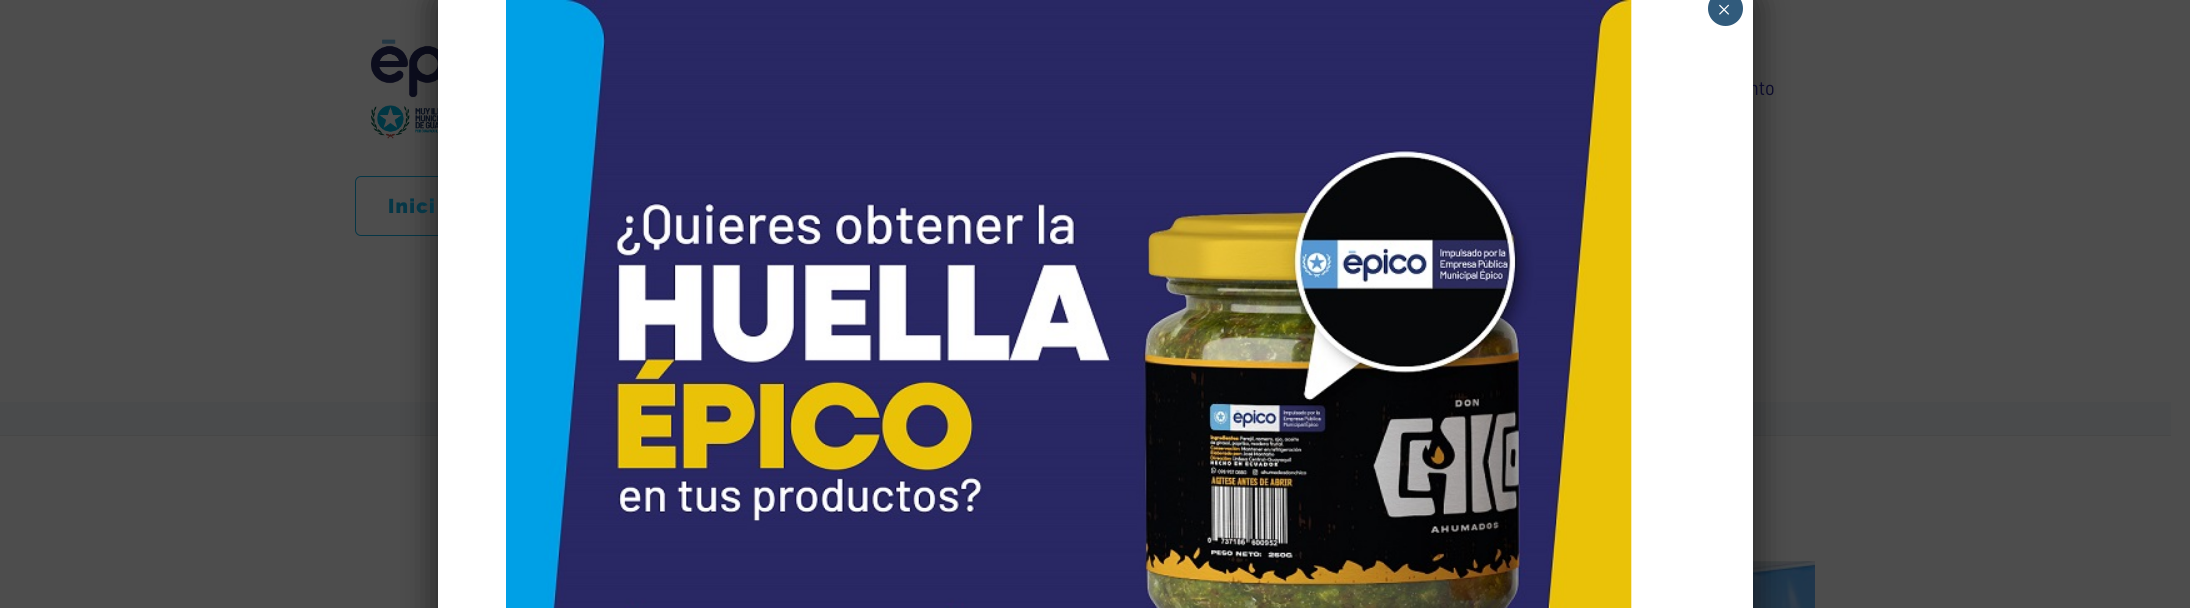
#include <cairo.h>
#include <math.h>
#include <stddef.h>

static cairo_t *ctx;

static void use_color(int r, int g, int b) {
    cairo_set_source_rgb(ctx, r / 255.0, g / 255.0, b / 255.0);
}

static void spaced_text(double x, double y, const char *s, double letter, double word) {
    cairo_move_to(ctx, x, y);
    while (*s) {
        char ch[5] = {0};
        int n = 0;
        do ch[n++] = *s++; while ((*s & 0xC0) == 0x80);
        cairo_show_text(ctx, ch);
        cairo_rel_move_to(ctx, letter + word * (*ch == ' '), 0);
    }
}

static void round_rect(double x, double y, double w, double h, double r) {
    cairo_new_sub_path(ctx);
    cairo_arc(ctx, x + w - r, y + h - r, r, 0, M_PI / 2);
    cairo_arc(ctx, x + r, y + h - r, r, M_PI / 2, M_PI);
    cairo_arc(ctx, x + r, y + r, r, M_PI, 1.5 * M_PI);
    cairo_arc(ctx, x + w - r, y + r, r, 1.5 * M_PI, 2 * M_PI);
    cairo_close_path(ctx);
}

static void shadow(double x, double y, double w, double h, double r, double blur, double alpha) {
    cairo_push_group_with_content(ctx, CAIRO_CONTENT_ALPHA);
    cairo_set_operator(ctx, CAIRO_OPERATOR_SOURCE);
    for (int i = 15; i >= -15 && fmin(w, h) + blur * i / 3 > 0; i -= 2) {
        double e = blur * i / 6;
        cairo_set_source_rgba(ctx, 0, 0, 0, alpha * erfc((i - 1) / 8.5) / 2);
        round_rect(x - e, y - e, w + 2 * e, h + 2 * e, fmax(0, fmin(r + e + blur * .6, fmin(w, h) / 2 + e)));
        cairo_fill(ctx);
    }
    cairo_pattern_t *soft = cairo_pop_group(ctx);
    cairo_mask(ctx, soft);
    cairo_pattern_destroy(soft);
}

static void picture(const char *path, double x, double y, double w, double h) {
    cairo_surface_t *image = cairo_image_surface_create_from_png(path);
    cairo_save(ctx);
    cairo_set_source_surface(ctx, image, x, y);
    cairo_rectangle(ctx, x, y, w, h);
    cairo_fill(ctx);
    cairo_restore(ctx);
    cairo_surface_destroy(image);
}

int main(void) {
    cairo_surface_t *surface = cairo_image_surface_create(CAIRO_FORMAT_RGB24, 2190, 608);
    ctx = cairo_create(surface);
    cairo_font_options_t *options = cairo_font_options_create();
    cairo_font_options_set_hint_metrics(options, CAIRO_HINT_METRICS_OFF);
    cairo_font_options_set_hint_style(options, CAIRO_HINT_STYLE_NONE);
    cairo_set_font_options(ctx, options);
    cairo_set_miter_limit(ctx, 4);
    cairo_pattern_t *gradient;
    use_color(77, 77, 77);
    cairo_paint(ctx);
    picture("img2.png", 371, 39, 67, 100);
    round_rect(355.5, 176.5, 203, 59, 5.5);
    use_color(6, 54, 70);
    cairo_set_line_width(ctx, 1);
    cairo_stroke(ctx);
    gradient = cairo_pattern_create_linear(1086, 237, 1086, 435);
    cairo_pattern_add_color_stop_rgba(gradient, 0, 0.302, 0.302, 0.302, 1);
    cairo_pattern_add_color_stop_rgba(gradient, 1, 0.29, 0.294, 0.298, 1);
    cairo_set_source(ctx, gradient);
    cairo_pattern_destroy(gradient);
    cairo_rectangle(ctx, 0, 402, 2171, 33);
    cairo_fill(ctx);
    use_color(71, 71, 71);
    cairo_rectangle(ctx, 0, 435, 2171, 1);
    cairo_fill(ctx);
    picture("img3.png", 1753, 561, 62, 47);
    use_color(2, 2, 2);
    shadow(433, -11, 1325, 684, 18, 15.5, 0.5);
    cairo_select_font_face(ctx, "Barlow Semi Condensed", CAIRO_FONT_SLANT_NORMAL, CAIRO_FONT_WEIGHT_NORMAL);
    cairo_set_font_size(ctx, 20);
    use_color(13, 12, 44);
    cairo_move_to(ctx, 1749, 95);
    cairo_show_text(ctx, "nto");
    use_color(255, 255, 255);
    cairo_rectangle(ctx, 438, 0, 1315, 608);
    cairo_fill(ctx);
    picture("img1.png", 506, 0, 1126, 608);
    use_color(49, 91, 124);
    cairo_arc(ctx, 1725.5, 8.5, 17.5, 0, 2 * M_PI);
    cairo_fill(ctx);
    cairo_select_font_face(ctx, "Liberation Serif", CAIRO_FONT_SLANT_NORMAL, CAIRO_FONT_WEIGHT_NORMAL);
    cairo_set_font_size(ctx, 25);
    use_color(255, 255, 255);
    cairo_move_to(ctx, 1717, 18);
    cairo_show_text(ctx, "×");
    cairo_select_font_face(ctx, "Raleway Black", CAIRO_FONT_SLANT_NORMAL, CAIRO_FONT_WEIGHT_NORMAL);
    cairo_set_font_size(ctx, 20);
    use_color(6, 54, 70);
    spaced_text(388, 213, "Inici", 1.25, 0);
    cairo_surface_write_to_png(surface, "result.png");
    cairo_font_options_destroy(options);
    cairo_destroy(ctx);
    cairo_surface_destroy(surface);
    return 0;
}
